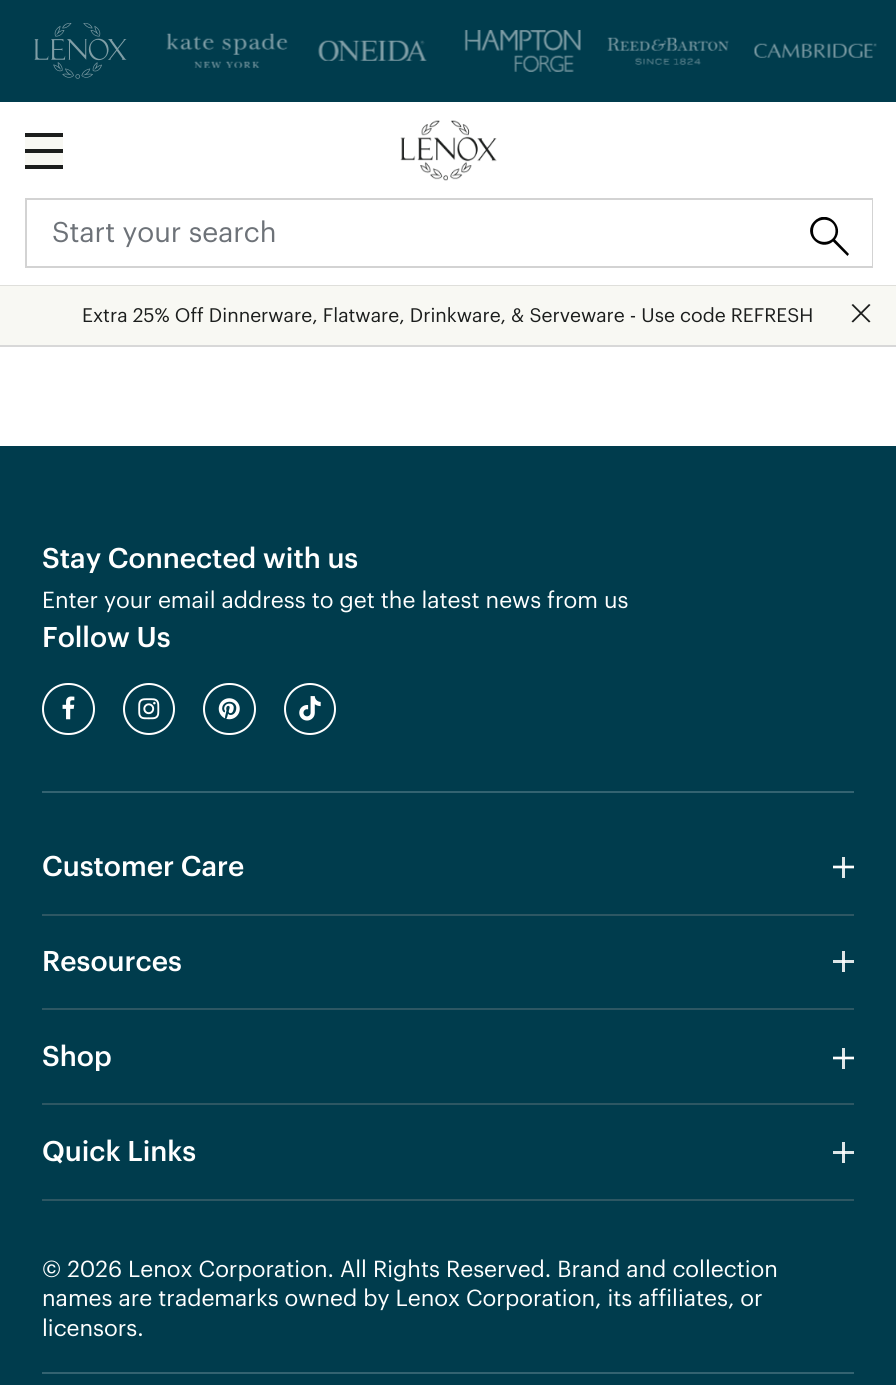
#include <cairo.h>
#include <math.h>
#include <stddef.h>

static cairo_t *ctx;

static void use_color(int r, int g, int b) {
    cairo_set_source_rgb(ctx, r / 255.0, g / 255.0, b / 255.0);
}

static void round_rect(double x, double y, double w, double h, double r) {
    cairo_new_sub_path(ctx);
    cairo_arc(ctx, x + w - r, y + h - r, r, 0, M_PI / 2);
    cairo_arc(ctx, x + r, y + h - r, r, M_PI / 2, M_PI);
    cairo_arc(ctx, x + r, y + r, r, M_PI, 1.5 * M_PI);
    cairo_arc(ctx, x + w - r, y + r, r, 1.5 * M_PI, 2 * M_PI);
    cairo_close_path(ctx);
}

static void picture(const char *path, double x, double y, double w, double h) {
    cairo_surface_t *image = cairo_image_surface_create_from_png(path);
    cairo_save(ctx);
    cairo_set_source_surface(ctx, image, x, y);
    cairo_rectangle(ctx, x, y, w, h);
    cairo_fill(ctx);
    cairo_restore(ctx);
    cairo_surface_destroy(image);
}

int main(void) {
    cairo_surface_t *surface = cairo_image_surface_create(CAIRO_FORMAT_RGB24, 896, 1385);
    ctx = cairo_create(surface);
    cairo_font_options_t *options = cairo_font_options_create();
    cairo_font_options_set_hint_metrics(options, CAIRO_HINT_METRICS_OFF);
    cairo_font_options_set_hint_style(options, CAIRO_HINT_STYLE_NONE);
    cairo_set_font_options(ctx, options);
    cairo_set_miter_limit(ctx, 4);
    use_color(255, 255, 255);
    cairo_paint(ctx);
    use_color(248, 248, 243);
    cairo_rectangle(ctx, 25, 137, 38, 28);
    cairo_fill(ctx);
    use_color(28, 30, 29);
    cairo_rectangle(ctx, 25, 133, 38, 4);
    cairo_fill(ctx);
    cairo_rectangle(ctx, 25, 149, 38, 4);
    cairo_fill(ctx);
    cairo_rectangle(ctx, 25, 165, 38, 4);
    cairo_fill(ctx);
    picture("img1.png", 400, 120, 97, 61);
    cairo_rectangle(ctx, 26, 199, 846, 68);
    use_color(211, 211, 211);
    cairo_stroke(ctx);
    cairo_select_font_face(ctx, "Graphik", CAIRO_FONT_SLANT_ITALIC, CAIRO_FONT_WEIGHT_NORMAL);
    cairo_set_font_size(ctx, 28);
    use_color(109, 114, 120);
    cairo_move_to(ctx, 52, 242);
    cairo_show_text(ctx, "Start your search");
    use_color(255, 255, 255);
    cairo_rectangle(ctx, 871, 200, 1, 66);
    cairo_fill(ctx);
    cairo_save(ctx);
    cairo_rectangle(ctx, 810, 217, 41, 40);
    cairo_clip(ctx);
    use_color(0, 0, 0);
    cairo_new_path(ctx);
    cairo_move_to(ctx, 847.5, 256);
    cairo_line_to(ctx, 833, 241.5);
    cairo_curve_to(ctx, 820, 252.5, 801.5, 233.5, 814.5, 221);
    cairo_curve_to(ctx, 827, 208.5, 845.5, 226.5, 835, 239.5);
    cairo_line_to(ctx, 849, 254);
    cairo_close_path(ctx);
    cairo_move_to(ctx, 813, 231);
    cairo_curve_to(ctx, 813, 245.5, 835.5, 245.5, 835.5, 231);
    cairo_curve_to(ctx, 835.5, 216, 813, 216, 813, 231);
    cairo_close_path(ctx);
    cairo_fill(ctx);
    cairo_restore(ctx);
    use_color(0, 60, 77);
    cairo_rectangle(ctx, 0, 0, 896, 102);
    cairo_fill(ctx);
    picture("img2.png", 34, 23, 93, 56);
    picture("img3.png", 166, 33, 122, 35);
    picture("img4.png", 318, 40, 109, 21);
    picture("img5.png", 464, 30, 117, 42);
    picture("img6.png", 607, 37, 122, 28);
    picture("img7.png", 754, 43, 123, 15);
    use_color(248, 248, 243);
    cairo_rectangle(ctx, 0, 286, 896, 59);
    cairo_fill(ctx);
    use_color(223, 223, 219);
    cairo_rectangle(ctx, 0, 285, 896, 1);
    cairo_fill(ctx);
    use_color(216, 216, 216);
    cairo_rectangle(ctx, 0, 345, 896, 2);
    cairo_fill(ctx);
    cairo_set_font_size(ctx, 19.25);
    use_color(28, 30, 29);
    cairo_move_to(ctx, 82, 322);
    cairo_show_text(ctx, "Extra 25% Off Dinnerware, Flatware, Drinkware, & Serveware - Use code REFRESH");
    cairo_new_path(ctx);
    cairo_move_to(ctx, 851.5, 321.5);
    cairo_line_to(ctx, 869, 304);
    cairo_line_to(ctx, 870.5, 305);
    cairo_line_to(ctx, 853, 322.5);
    cairo_close_path(ctx);
    cairo_fill(ctx);
    cairo_new_path(ctx);
    cairo_move_to(ctx, 853, 304);
    cairo_line_to(ctx, 870.5, 321.5);
    cairo_line_to(ctx, 869, 322.5);
    cairo_line_to(ctx, 851.5, 305);
    cairo_close_path(ctx);
    cairo_fill(ctx);
    use_color(0, 60, 77);
    cairo_rectangle(ctx, 0, 446, 896, 939);
    cairo_fill(ctx);
    use_color(222, 230, 232);
    cairo_rectangle(ctx, 842, 1142, 3, 21);
    cairo_fill(ctx);
    cairo_rectangle(ctx, 842, 951, 3, 21);
    cairo_fill(ctx);
    use_color(51, 99, 113);
    cairo_rectangle(ctx, 42, 791, 812, 2);
    cairo_fill(ctx);
    cairo_select_font_face(ctx, "Graphik Medium", CAIRO_FONT_SLANT_NORMAL, CAIRO_FONT_WEIGHT_NORMAL);
    cairo_set_font_size(ctx, 28);
    use_color(255, 255, 255);
    cairo_move_to(ctx, 42, 568);
    cairo_show_text(ctx, "Stay Connected with us");
    cairo_select_font_face(ctx, "Graphik", CAIRO_FONT_SLANT_ITALIC, CAIRO_FONT_WEIGHT_NORMAL);
    cairo_set_font_size(ctx, 22.75);
    cairo_move_to(ctx, 42, 608);
    cairo_show_text(ctx, "Enter your email address to get the latest news from us");
    cairo_select_font_face(ctx, "Graphik Medium", CAIRO_FONT_SLANT_NORMAL, CAIRO_FONT_WEIGHT_NORMAL);
    cairo_set_font_size(ctx, 28);
    cairo_move_to(ctx, 42, 647);
    cairo_show_text(ctx, "Follow Us");
    round_rect(43, 684, 51, 50, 25);
    cairo_stroke(ctx);
    picture("img8.png", 62, 696, 13, 24);
    cairo_arc(ctx, 149, 709, 25, 0, 2 * M_PI);
    cairo_stroke(ctx);
    picture("img9.png", 138, 698, 22, 22);
    round_rect(204, 684, 51, 50, 25);
    cairo_stroke(ctx);
    picture("img10.png", 218, 698, 22, 22);
    cairo_arc(ctx, 310, 709, 25, 0, 2 * M_PI);
    cairo_stroke(ctx);
    picture("img11.png", 299, 696, 22, 25);
    cairo_move_to(ctx, 42, 876);
    cairo_show_text(ctx, "Customer Care");
    cairo_new_path(ctx);
    cairo_move_to(ctx, 833, 867);
    cairo_line_to(ctx, 854, 867);
    cairo_set_line_width(ctx, 2.6);
    cairo_set_line_join(ctx, CAIRO_LINE_JOIN_ROUND);
    cairo_stroke(ctx);
    cairo_set_source_rgba(ctx, 1, 1, 1, 0.87);
    cairo_rectangle(ctx, 842, 857, 3, 21);
    cairo_fill(ctx);
    use_color(45, 87, 99);
    cairo_rectangle(ctx, 42, 914, 812, 2);
    cairo_fill(ctx);
    use_color(255, 255, 255);
    cairo_move_to(ctx, 42, 971);
    cairo_show_text(ctx, "Resources");
    use_color(221, 229, 231);
    cairo_rectangle(ctx, 833, 960, 21, 3);
    cairo_fill(ctx);
    use_color(251, 252, 252);
    cairo_rectangle(ctx, 842, 960, 3, 3);
    cairo_fill(ctx);
    use_color(45, 87, 99);
    cairo_rectangle(ctx, 42, 1008, 812, 2);
    cairo_fill(ctx);
    use_color(255, 255, 255);
    cairo_move_to(ctx, 42, 1066);
    cairo_show_text(ctx, "Shop");
    cairo_new_path(ctx);
    cairo_move_to(ctx, 833, 1058);
    cairo_line_to(ctx, 854, 1058);
    cairo_stroke(ctx);
    cairo_set_source_rgba(ctx, 1, 1, 1, 0.87);
    cairo_rectangle(ctx, 842, 1048, 3, 21);
    cairo_fill(ctx);
    use_color(45, 87, 99);
    cairo_rectangle(ctx, 42, 1103, 812, 2);
    cairo_fill(ctx);
    use_color(255, 255, 255);
    cairo_move_to(ctx, 42, 1161);
    cairo_show_text(ctx, "Quick Links");
    use_color(221, 229, 231);
    cairo_rectangle(ctx, 833, 1151, 21, 3);
    cairo_fill(ctx);
    use_color(251, 252, 252);
    cairo_rectangle(ctx, 842, 1151, 3, 3);
    cairo_fill(ctx);
    use_color(45, 87, 99);
    cairo_rectangle(ctx, 42, 1199, 812, 2);
    cairo_fill(ctx);
    cairo_select_font_face(ctx, "Graphik", CAIRO_FONT_SLANT_ITALIC, CAIRO_FONT_WEIGHT_NORMAL);
    cairo_set_font_size(ctx, 22.75);
    use_color(255, 255, 255);
    cairo_move_to(ctx, 42, 1277);
    cairo_show_text(ctx, "© 2026 Lenox Corporation. All Rights Reserved. Brand and collection");
    cairo_move_to(ctx, 42, 1306);
    cairo_show_text(ctx, "names are trademarks owned by Lenox Corporation, its affiliates, or");
    cairo_move_to(ctx, 42, 1336);
    cairo_show_text(ctx, "licensors.");
    use_color(51, 99, 113);
    cairo_rectangle(ctx, 42, 1372, 812, 2);
    cairo_fill(ctx);
    cairo_surface_write_to_png(surface, "result.png");
    cairo_font_options_destroy(options);
    cairo_destroy(ctx);
    cairo_surface_destroy(surface);
    return 0;
}
